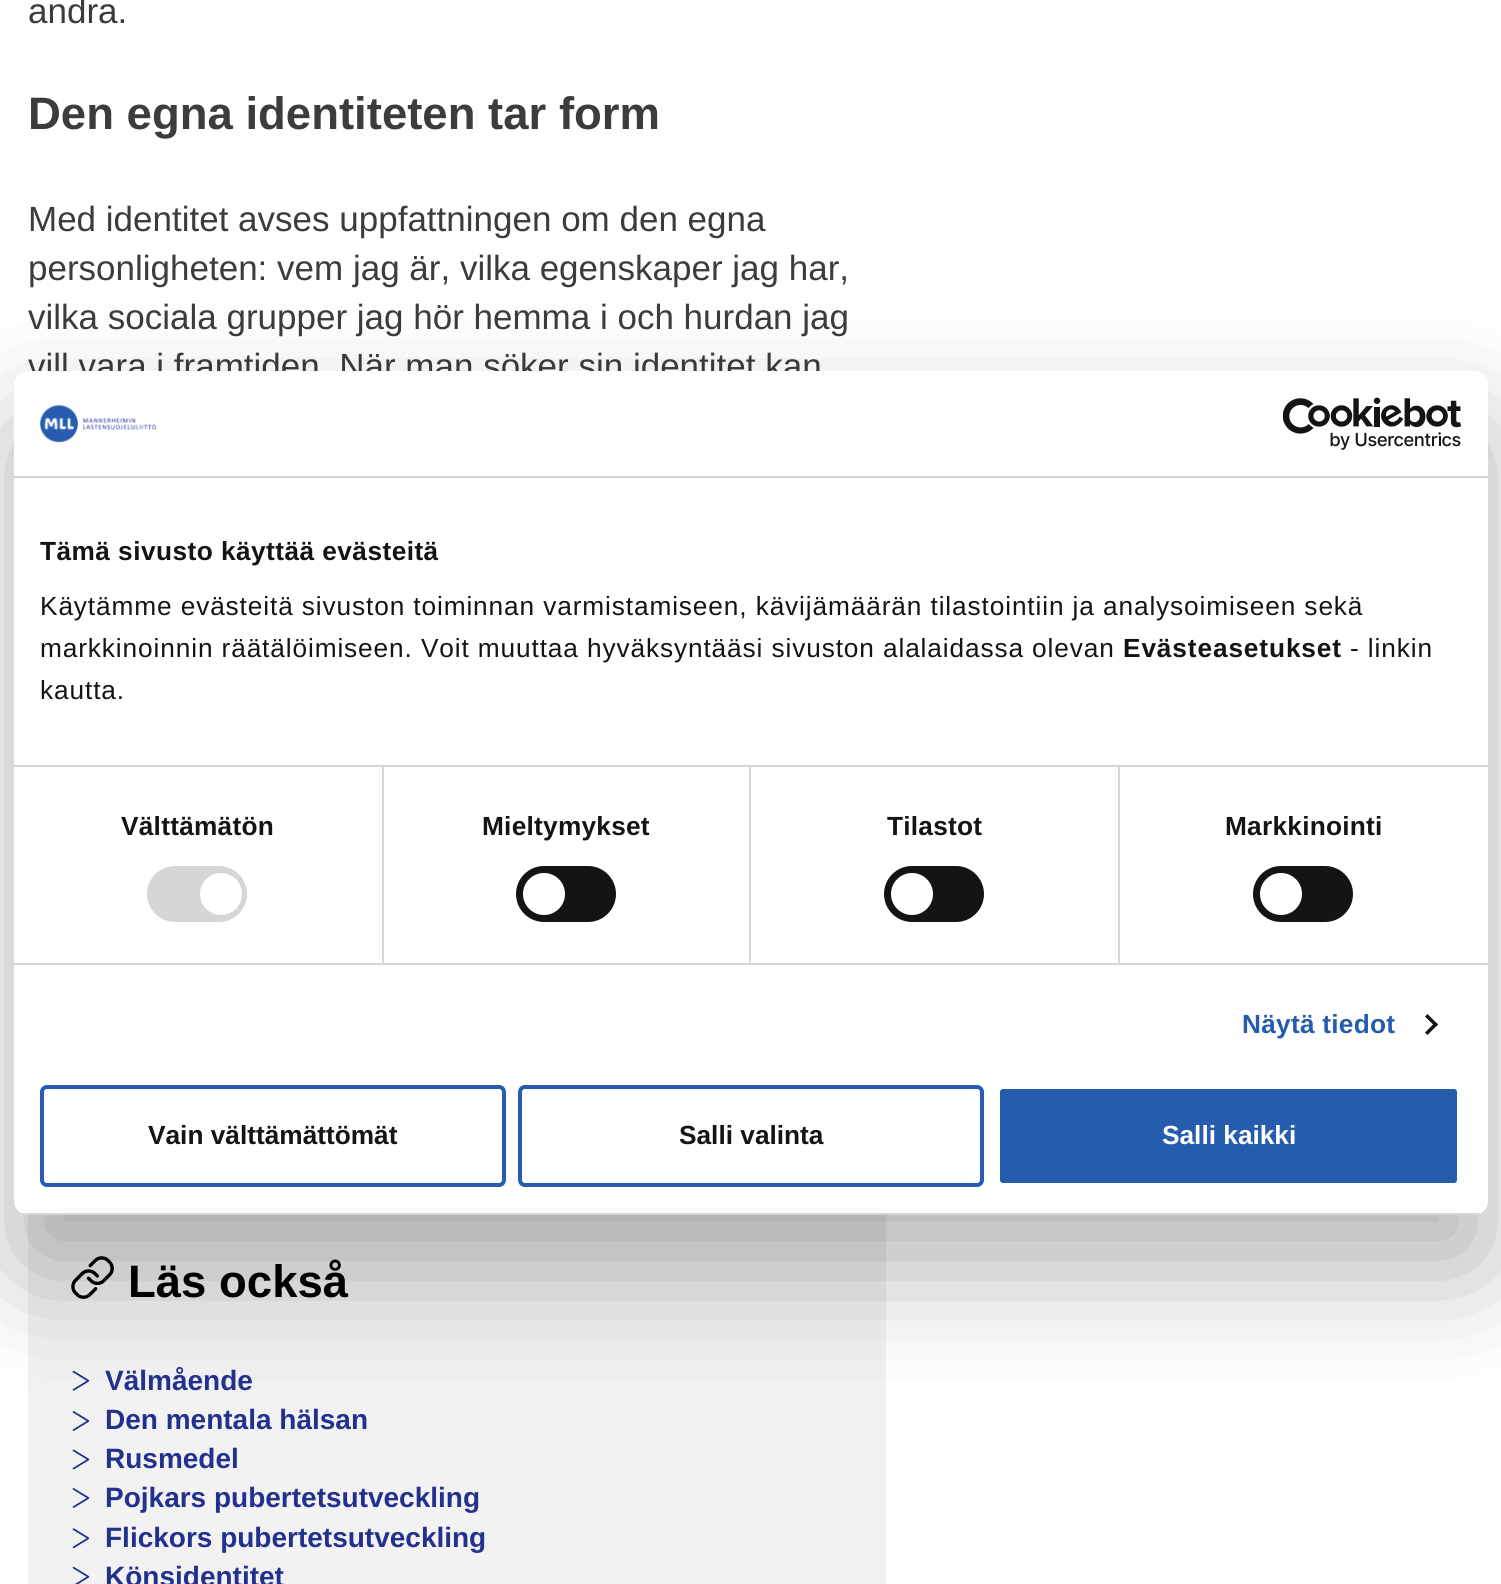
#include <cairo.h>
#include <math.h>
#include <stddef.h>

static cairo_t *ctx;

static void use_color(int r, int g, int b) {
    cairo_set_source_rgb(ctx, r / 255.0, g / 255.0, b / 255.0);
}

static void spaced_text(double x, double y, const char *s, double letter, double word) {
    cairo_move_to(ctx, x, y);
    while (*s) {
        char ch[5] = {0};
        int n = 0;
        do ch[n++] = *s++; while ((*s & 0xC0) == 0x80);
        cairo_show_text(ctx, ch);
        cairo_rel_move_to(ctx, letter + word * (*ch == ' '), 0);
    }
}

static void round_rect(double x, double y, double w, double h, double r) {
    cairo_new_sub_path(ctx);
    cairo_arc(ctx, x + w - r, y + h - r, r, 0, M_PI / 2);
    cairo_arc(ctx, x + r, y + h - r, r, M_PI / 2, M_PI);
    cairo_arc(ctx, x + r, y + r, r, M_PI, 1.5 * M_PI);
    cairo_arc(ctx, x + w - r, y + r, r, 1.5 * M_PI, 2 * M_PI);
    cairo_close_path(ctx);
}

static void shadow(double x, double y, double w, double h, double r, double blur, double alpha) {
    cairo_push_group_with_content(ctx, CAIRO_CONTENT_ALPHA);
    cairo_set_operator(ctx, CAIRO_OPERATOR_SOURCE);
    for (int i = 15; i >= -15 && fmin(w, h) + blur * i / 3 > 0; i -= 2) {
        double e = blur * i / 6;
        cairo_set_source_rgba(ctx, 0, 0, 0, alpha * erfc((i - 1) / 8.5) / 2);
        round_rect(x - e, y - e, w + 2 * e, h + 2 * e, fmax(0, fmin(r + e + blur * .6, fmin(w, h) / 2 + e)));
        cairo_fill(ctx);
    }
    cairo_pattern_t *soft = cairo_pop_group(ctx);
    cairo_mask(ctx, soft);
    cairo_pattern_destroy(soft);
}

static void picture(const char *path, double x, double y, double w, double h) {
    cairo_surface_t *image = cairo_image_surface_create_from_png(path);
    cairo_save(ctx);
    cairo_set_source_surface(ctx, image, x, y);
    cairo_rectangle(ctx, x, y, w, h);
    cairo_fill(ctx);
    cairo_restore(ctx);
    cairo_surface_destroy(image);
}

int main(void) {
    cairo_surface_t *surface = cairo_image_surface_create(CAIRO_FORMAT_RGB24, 1501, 1584);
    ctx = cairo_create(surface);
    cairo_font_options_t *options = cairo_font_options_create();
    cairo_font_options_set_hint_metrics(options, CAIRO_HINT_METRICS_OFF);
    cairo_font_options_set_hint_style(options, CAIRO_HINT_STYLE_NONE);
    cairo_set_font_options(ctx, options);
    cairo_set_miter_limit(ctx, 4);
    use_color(255, 255, 255);
    cairo_paint(ctx);
    cairo_select_font_face(ctx, "Liberation Sans", CAIRO_FONT_SLANT_NORMAL, CAIRO_FONT_WEIGHT_NORMAL);
    cairo_set_font_size(ctx, 35);
    use_color(60, 60, 60);
    cairo_move_to(ctx, 28, 23);
    cairo_show_text(ctx, "andra.");
    cairo_select_font_face(ctx, "Liberation Sans", CAIRO_FONT_SLANT_NORMAL, CAIRO_FONT_WEIGHT_BOLD);
    cairo_set_font_size(ctx, 45.5);
    cairo_move_to(ctx, 28, 129);
    cairo_show_text(ctx, "Den egna identiteten tar form");
    cairo_select_font_face(ctx, "Liberation Sans", CAIRO_FONT_SLANT_NORMAL, CAIRO_FONT_WEIGHT_NORMAL);
    cairo_set_font_size(ctx, 35);
    cairo_move_to(ctx, 28, 231);
    cairo_show_text(ctx, "Med identitet avses uppfattningen om den egna");
    cairo_move_to(ctx, 28, 280);
    cairo_show_text(ctx, "personligheten: vem jag är, vilka egenskaper jag har,");
    cairo_move_to(ctx, 28, 329);
    cairo_show_text(ctx, "vilka sociala grupper jag hör hemma i och hurdan jag");
    cairo_move_to(ctx, 28, 378);
    cairo_show_text(ctx, "vill vara i framtiden. När man söker sin identitet kan");
    use_color(242, 242, 242);
    cairo_rectangle(ctx, 28, 1215, 858, 369);
    cairo_fill(ctx);
    picture("img1.png", 71, 1256, 43, 43);
    cairo_select_font_face(ctx, "Liberation Sans", CAIRO_FONT_SLANT_NORMAL, CAIRO_FONT_WEIGHT_BOLD);
    cairo_set_font_size(ctx, 45.5);
    use_color(0, 0, 0);
    cairo_move_to(ctx, 128, 1297);
    cairo_show_text(ctx, "Läs också");
    picture("img2.png", 72, 1370, 18, 21);
    cairo_set_font_size(ctx, 28);
    use_color(35, 49, 142);
    cairo_move_to(ctx, 105, 1390);
    cairo_show_text(ctx, "Välmående");
    picture("img3.png", 72, 1411, 18, 20);
    cairo_move_to(ctx, 105, 1429);
    cairo_show_text(ctx, "Den mentala hälsan");
    picture("img4.png", 72, 1449, 18, 21);
    cairo_move_to(ctx, 105, 1468);
    cairo_show_text(ctx, "Rusmedel");
    picture("img3.png", 72, 1488, 18, 20);
    cairo_move_to(ctx, 105, 1507);
    cairo_show_text(ctx, "Pojkars pubertetsutveckling");
    picture("img5.png", 72, 1528, 18, 21);
    cairo_move_to(ctx, 105, 1547);
    cairo_show_text(ctx, "Flickors pubertetsutveckling");
    picture("img6.png", 72, 1566, 18, 18);
    cairo_move_to(ctx, 105, 1586);
    cairo_show_text(ctx, "Könsidentitet");
    use_color(0, 0, 0);
    shadow(14, 427, 1474, 844, 14, 59.5, 0.3);
    use_color(255, 255, 255);
    round_rect(14, 371, 1474, 844, 14);
    cairo_fill(ctx);
    use_color(214, 214, 214);
    cairo_rectangle(ctx, 14, 476, 1474, 2);
    cairo_fill(ctx);
    picture("img7.png", 40, 405, 116, 38);
    picture("img8.png", 1283, 397, 178, 53);
    cairo_rectangle(ctx, 14, 765, 1474, 2);
    cairo_fill(ctx);
    cairo_set_font_size(ctx, 26.25);
    use_color(20, 20, 20);
    spaced_text(40, 560, "Tämä sivusto käyttää evästeitä", 0.45, 0);
    cairo_select_font_face(ctx, "Liberation Sans", CAIRO_FONT_SLANT_NORMAL, CAIRO_FONT_WEIGHT_NORMAL);
    spaced_text(40, 615, "Käytämme evästeitä sivuston toiminnan varmistamiseen, kävijämäärän tilastointiin ja analysoimiseen sekä", 0.88, 0);
    spaced_text(40, 657, "markkinoinnin räätälöimiseen. Voit muuttaa hyväksyntääsi sivuston alalaidassa olevan", 0.88, 0);
    cairo_select_font_face(ctx, "Liberation Sans", CAIRO_FONT_SLANT_NORMAL, CAIRO_FONT_WEIGHT_BOLD);
    spaced_text(1123, 657, "Evästeasetukset", 0.88, 0);
    cairo_select_font_face(ctx, "Liberation Sans", CAIRO_FONT_SLANT_NORMAL, CAIRO_FONT_WEIGHT_NORMAL);
    spaced_text(1350, 657, "- linkin", 0.88, 0);
    spaced_text(40, 699, "kautta.", 0.88, 0);
    use_color(214, 214, 214);
    cairo_rectangle(ctx, 14, 963, 1474, 2);
    cairo_fill(ctx);
    cairo_rectangle(ctx, 382, 767, 2, 196);
    cairo_fill(ctx);
    cairo_select_font_face(ctx, "Liberation Sans", CAIRO_FONT_SLANT_NORMAL, CAIRO_FONT_WEIGHT_BOLD);
    use_color(20, 20, 20);
    spaced_text(121, 835, "Välttämätön", 0.25, 0);
    use_color(214, 214, 214);
    round_rect(147, 866, 100, 56, 28);
    cairo_fill(ctx);
    use_color(255, 255, 255);
    cairo_arc(ctx, 221, 894, 21, 0, 2 * M_PI);
    cairo_fill(ctx);
    use_color(214, 214, 214);
    cairo_rectangle(ctx, 749, 767, 2, 196);
    cairo_fill(ctx);
    use_color(20, 20, 20);
    spaced_text(482, 835, "Mieltymykset", 0.25, 0);
    round_rect(516, 866, 100, 56, 28);
    cairo_fill(ctx);
    use_color(255, 255, 255);
    cairo_arc(ctx, 544, 894, 21, 0, 2 * M_PI);
    cairo_fill(ctx);
    use_color(214, 214, 214);
    cairo_rectangle(ctx, 1118, 767, 2, 196);
    cairo_fill(ctx);
    use_color(20, 20, 20);
    spaced_text(887, 835, "Tilastot", 0.25, 0);
    round_rect(884, 866, 100, 56, 28);
    cairo_fill(ctx);
    use_color(255, 255, 255);
    cairo_arc(ctx, 912, 894, 21, 0, 2 * M_PI);
    cairo_fill(ctx);
    use_color(20, 20, 20);
    spaced_text(1225, 835, "Markkinointi", 0.25, 0);
    round_rect(1253, 866, 100, 56, 28);
    cairo_fill(ctx);
    use_color(255, 255, 255);
    cairo_arc(ctx, 1281, 894, 21, 0, 2 * M_PI);
    cairo_fill(ctx);
    use_color(37, 92, 174);
    spaced_text(1242, 1033, "Näytä tiedot", 0.25, 0);
    use_color(20, 20, 20);
    cairo_new_path(ctx);
    cairo_move_to(ctx, 1427.5, 1014);
    cairo_line_to(ctx, 1438, 1024.5);
    cairo_line_to(ctx, 1435.5, 1027);
    cairo_line_to(ctx, 1425, 1016.5);
    cairo_close_path(ctx);
    cairo_fill(ctx);
    cairo_new_path(ctx);
    cairo_move_to(ctx, 1435.5, 1022);
    cairo_line_to(ctx, 1438, 1024.5);
    cairo_line_to(ctx, 1427.5, 1035);
    cairo_line_to(ctx, 1425, 1032.5);
    cairo_close_path(ctx);
    cairo_fill(ctx);
    cairo_save(ctx);
    round_rect(14, 371, 1474, 844, 14);
    cairo_clip(ctx);
    use_color(214, 214, 214);
    cairo_rectangle(ctx, 14, 1213, 1474, 2);
    cairo_fill(ctx);
    cairo_restore(ctx);
    round_rect(42, 1087, 462, 98, 5);
    use_color(37, 92, 174);
    cairo_set_line_width(ctx, 4);
    cairo_stroke(ctx);
    use_color(20, 20, 20);
    cairo_move_to(ctx, 148, 1144);
    cairo_show_text(ctx, "Vain välttämättömät");
    round_rect(520, 1087, 462, 98, 5);
    use_color(37, 92, 174);
    cairo_stroke(ctx);
    use_color(20, 20, 20);
    cairo_move_to(ctx, 679, 1144);
    cairo_show_text(ctx, "Salli valinta");
    use_color(37, 92, 174);
    round_rect(998, 1087, 461, 98, 5);
    cairo_fill_preserve(ctx);
    use_color(255, 255, 255);
    cairo_stroke(ctx);
    cairo_move_to(ctx, 1162, 1144);
    cairo_show_text(ctx, "Salli kaikki");
    cairo_surface_write_to_png(surface, "result.png");
    cairo_font_options_destroy(options);
    cairo_destroy(ctx);
    cairo_surface_destroy(surface);
    return 0;
}
